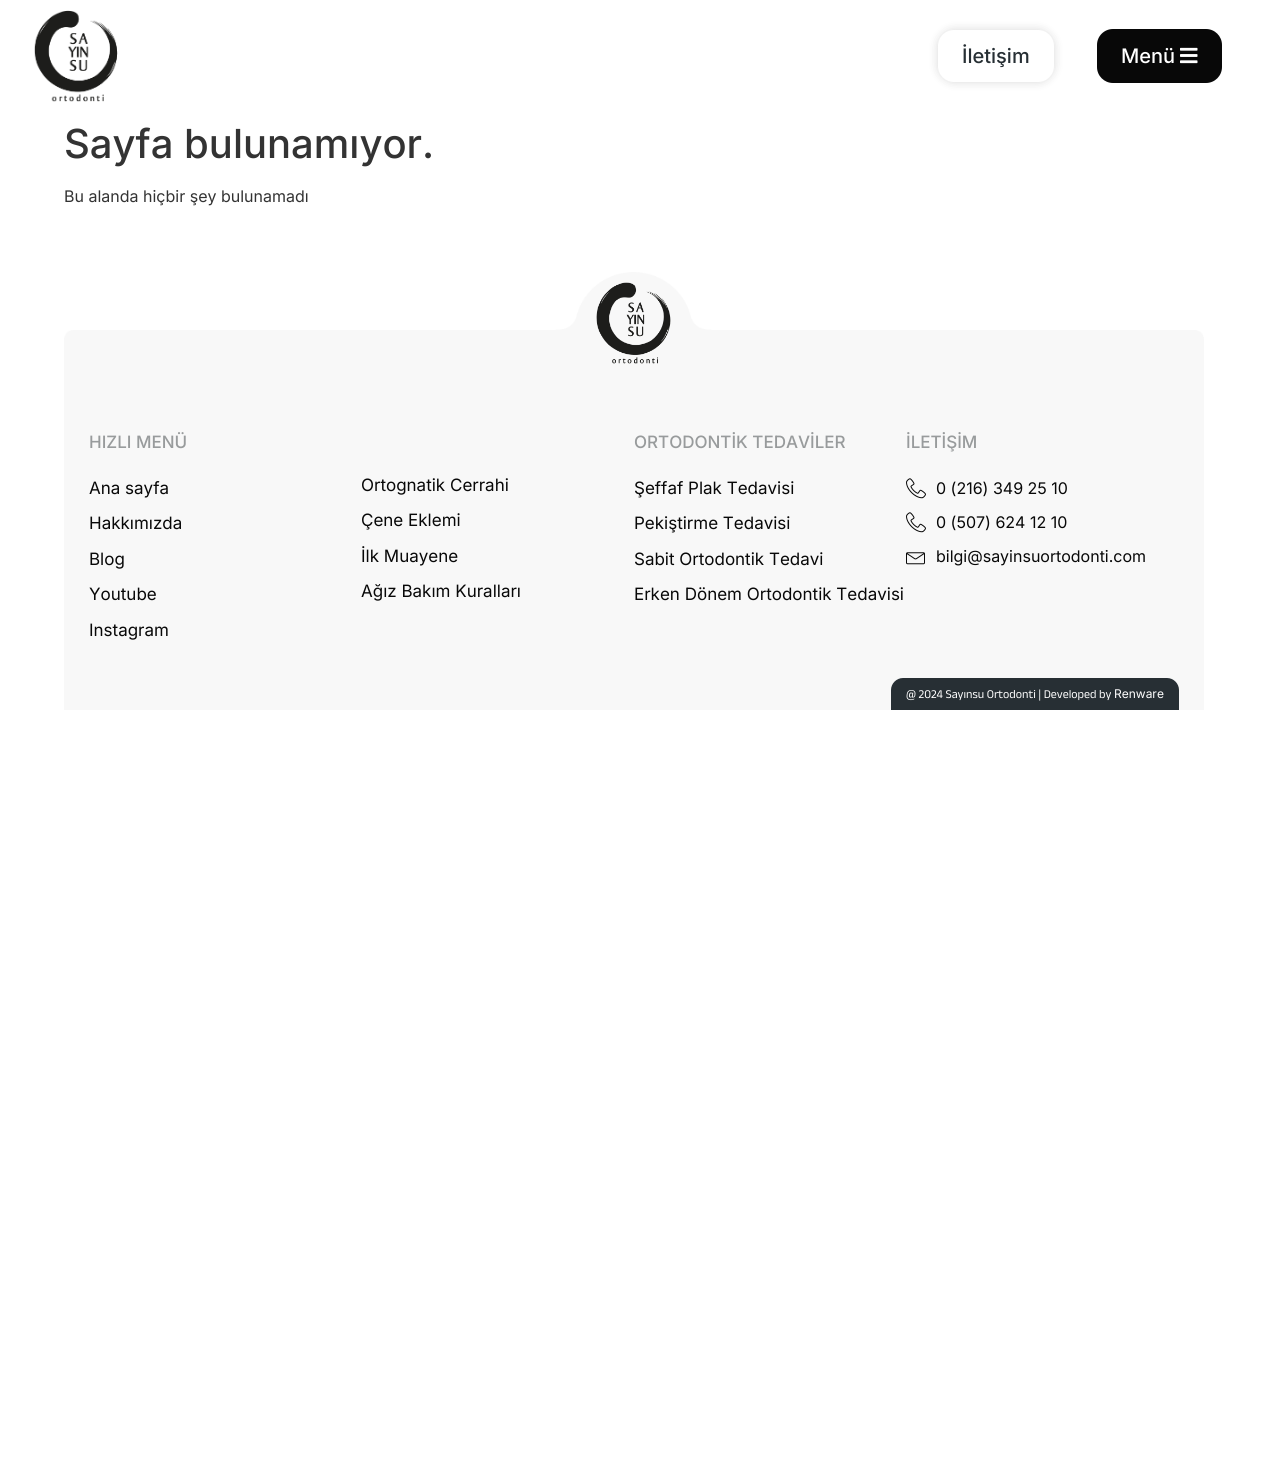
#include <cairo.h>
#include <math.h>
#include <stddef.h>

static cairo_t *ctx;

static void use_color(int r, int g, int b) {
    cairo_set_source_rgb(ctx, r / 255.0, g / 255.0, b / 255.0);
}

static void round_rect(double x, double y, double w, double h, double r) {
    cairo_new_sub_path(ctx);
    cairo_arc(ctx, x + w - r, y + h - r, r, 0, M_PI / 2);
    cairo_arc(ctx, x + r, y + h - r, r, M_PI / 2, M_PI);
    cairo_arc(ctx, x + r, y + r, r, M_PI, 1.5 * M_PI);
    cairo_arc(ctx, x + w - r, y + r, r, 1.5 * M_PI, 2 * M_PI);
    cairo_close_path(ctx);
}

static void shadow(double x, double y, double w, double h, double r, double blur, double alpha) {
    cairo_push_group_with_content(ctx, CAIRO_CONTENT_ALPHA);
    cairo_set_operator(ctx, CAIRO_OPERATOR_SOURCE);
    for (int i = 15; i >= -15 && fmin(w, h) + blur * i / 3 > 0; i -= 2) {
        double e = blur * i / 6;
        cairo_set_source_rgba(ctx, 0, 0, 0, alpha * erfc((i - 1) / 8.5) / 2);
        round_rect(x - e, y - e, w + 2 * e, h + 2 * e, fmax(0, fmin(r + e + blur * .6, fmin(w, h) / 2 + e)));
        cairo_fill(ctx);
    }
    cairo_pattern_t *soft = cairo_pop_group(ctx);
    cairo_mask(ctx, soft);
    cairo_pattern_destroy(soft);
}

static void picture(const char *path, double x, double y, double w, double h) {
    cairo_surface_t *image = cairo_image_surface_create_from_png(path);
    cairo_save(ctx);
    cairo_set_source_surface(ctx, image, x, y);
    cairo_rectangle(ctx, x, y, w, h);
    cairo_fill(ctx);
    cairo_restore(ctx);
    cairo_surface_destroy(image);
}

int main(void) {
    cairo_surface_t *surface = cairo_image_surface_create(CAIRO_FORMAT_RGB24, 1267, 1484);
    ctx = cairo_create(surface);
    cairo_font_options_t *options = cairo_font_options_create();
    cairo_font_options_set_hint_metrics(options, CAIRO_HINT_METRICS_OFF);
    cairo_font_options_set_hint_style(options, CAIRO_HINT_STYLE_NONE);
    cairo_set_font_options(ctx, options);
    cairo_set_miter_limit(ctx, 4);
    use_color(255, 255, 255);
    cairo_paint(ctx);
    picture("img1.png", 34, 10, 84, 92);
    use_color(0, 0, 0);
    shadow(938, 30, 116, 52, 16, 5, 0.15);
    use_color(255, 255, 255);
    round_rect(938, 30, 116, 52, 16);
    cairo_fill(ctx);
    cairo_select_font_face(ctx, "Inter Medium", CAIRO_FONT_SLANT_NORMAL, CAIRO_FONT_WEIGHT_NORMAL);
    cairo_set_font_size(ctx, 20);
    use_color(39, 47, 52);
    cairo_move_to(ctx, 962, 63);
    cairo_show_text(ctx, "İletişim");
    use_color(8, 8, 8);
    round_rect(1097, 29, 125, 54, 16);
    cairo_fill(ctx);
    use_color(255, 255, 255);
    cairo_move_to(ctx, 1121, 63);
    cairo_show_text(ctx, "Menü");
    picture("img2.png", 1180, 47, 18, 17);
    cairo_set_font_size(ctx, 40);
    use_color(51, 51, 51);
    cairo_move_to(ctx, 64, 158);
    cairo_show_text(ctx, "Sayfa bulunamıyor.");
    cairo_select_font_face(ctx, "Inter", CAIRO_FONT_SLANT_NORMAL, CAIRO_FONT_WEIGHT_NORMAL);
    cairo_set_font_size(ctx, 16);
    cairo_move_to(ctx, 64, 202);
    cairo_show_text(ctx, "Bu alanda hiçbir şey bulunamadı");
    picture("img3.png", 64, 272, 1140, 112);
    picture("img4.png", 596, 282, 75, 82);
    use_color(248, 248, 248);
    cairo_rectangle(ctx, 64, 384, 1140, 326);
    cairo_fill(ctx);
    cairo_select_font_face(ctx, "Inter Medium", CAIRO_FONT_SLANT_NORMAL, CAIRO_FONT_WEIGHT_NORMAL);
    cairo_set_font_size(ctx, 17);
    use_color(152, 155, 156);
    cairo_move_to(ctx, 89, 448);
    cairo_show_text(ctx, "HIZLI MENÜ");
    cairo_select_font_face(ctx, "Inter", CAIRO_FONT_SLANT_NORMAL, CAIRO_FONT_WEIGHT_NORMAL);
    use_color(8, 8, 8);
    cairo_move_to(ctx, 89, 494);
    cairo_show_text(ctx, "Ana sayfa");
    cairo_move_to(ctx, 89, 529);
    cairo_show_text(ctx, "Hakkımızda");
    cairo_move_to(ctx, 89, 565);
    cairo_show_text(ctx, "Blog");
    cairo_move_to(ctx, 89, 600);
    cairo_show_text(ctx, "Youtube");
    cairo_move_to(ctx, 89, 636);
    cairo_show_text(ctx, "Instagram");
    cairo_move_to(ctx, 361, 491);
    cairo_show_text(ctx, "Ortognatik Cerrahi");
    cairo_move_to(ctx, 361, 526);
    cairo_show_text(ctx, "Çene Eklemi");
    cairo_move_to(ctx, 361, 562);
    cairo_show_text(ctx, "İlk Muayene");
    cairo_move_to(ctx, 361, 597);
    cairo_show_text(ctx, "Ağız Bakım Kuralları");
    cairo_select_font_face(ctx, "Inter Medium", CAIRO_FONT_SLANT_NORMAL, CAIRO_FONT_WEIGHT_NORMAL);
    use_color(152, 155, 156);
    cairo_move_to(ctx, 634, 448);
    cairo_show_text(ctx, "ORTODONTİK TEDAVİLER");
    cairo_select_font_face(ctx, "Inter", CAIRO_FONT_SLANT_NORMAL, CAIRO_FONT_WEIGHT_NORMAL);
    use_color(8, 8, 8);
    cairo_move_to(ctx, 634, 494);
    cairo_show_text(ctx, "Şeffaf Plak Tedavisi");
    cairo_move_to(ctx, 634, 529);
    cairo_show_text(ctx, "Pekiştirme Tedavisi");
    cairo_move_to(ctx, 634, 565);
    cairo_show_text(ctx, "Sabit Ortodontik Tedavi");
    cairo_move_to(ctx, 634, 600);
    cairo_show_text(ctx, "Erken Dönem Ortodontik Tedavisi");
    cairo_select_font_face(ctx, "Inter Medium", CAIRO_FONT_SLANT_NORMAL, CAIRO_FONT_WEIGHT_NORMAL);
    use_color(152, 155, 156);
    cairo_move_to(ctx, 906, 448);
    cairo_show_text(ctx, "İLETİŞİM");
    picture("img5.png", 906, 478, 20, 21);
    cairo_select_font_face(ctx, "Inter", CAIRO_FONT_SLANT_NORMAL, CAIRO_FONT_WEIGHT_NORMAL);
    cairo_set_font_size(ctx, 16);
    use_color(8, 8, 8);
    cairo_move_to(ctx, 936, 494);
    cairo_show_text(ctx, "0 (216) 349 25 10");
    picture("img5.png", 906, 512, 20, 21);
    cairo_move_to(ctx, 936, 528);
    cairo_show_text(ctx, "0 (507) 624 12 10");
    picture("img6.png", 906, 552, 19, 13);
    cairo_move_to(ctx, 936, 562);
    cairo_show_text(ctx, "bilgi@sayinsuortodonti.com");
    use_color(39, 47, 52);
    cairo_new_path(ctx);
    cairo_move_to(ctx, 903, 678);
    cairo_line_to(ctx, 1167, 678);
    cairo_curve_to(ctx, 1173.5, 678, 1179, 683.5, 1179, 690);
    cairo_line_to(ctx, 1179, 710);
    cairo_line_to(ctx, 891, 710);
    cairo_line_to(ctx, 891, 690);
    cairo_curve_to(ctx, 891, 683.5, 896.5, 678, 903, 678);
    cairo_close_path(ctx);
    cairo_fill(ctx);
    cairo_select_font_face(ctx, "Anek Latin", CAIRO_FONT_SLANT_NORMAL, CAIRO_FONT_WEIGHT_NORMAL);
    cairo_set_font_size(ctx, 12);
    use_color(255, 255, 255);
    cairo_move_to(ctx, 906, 698);
    cairo_show_text(ctx, "@ 2024 Sayınsu Ortodonti | Developed by");
    cairo_select_font_face(ctx, "Inter", CAIRO_FONT_SLANT_NORMAL, CAIRO_FONT_WEIGHT_NORMAL);
    cairo_move_to(ctx, 1114, 698);
    cairo_show_text(ctx, "Renware");
    cairo_surface_write_to_png(surface, "result.png");
    cairo_font_options_destroy(options);
    cairo_destroy(ctx);
    cairo_surface_destroy(surface);
    return 0;
}
